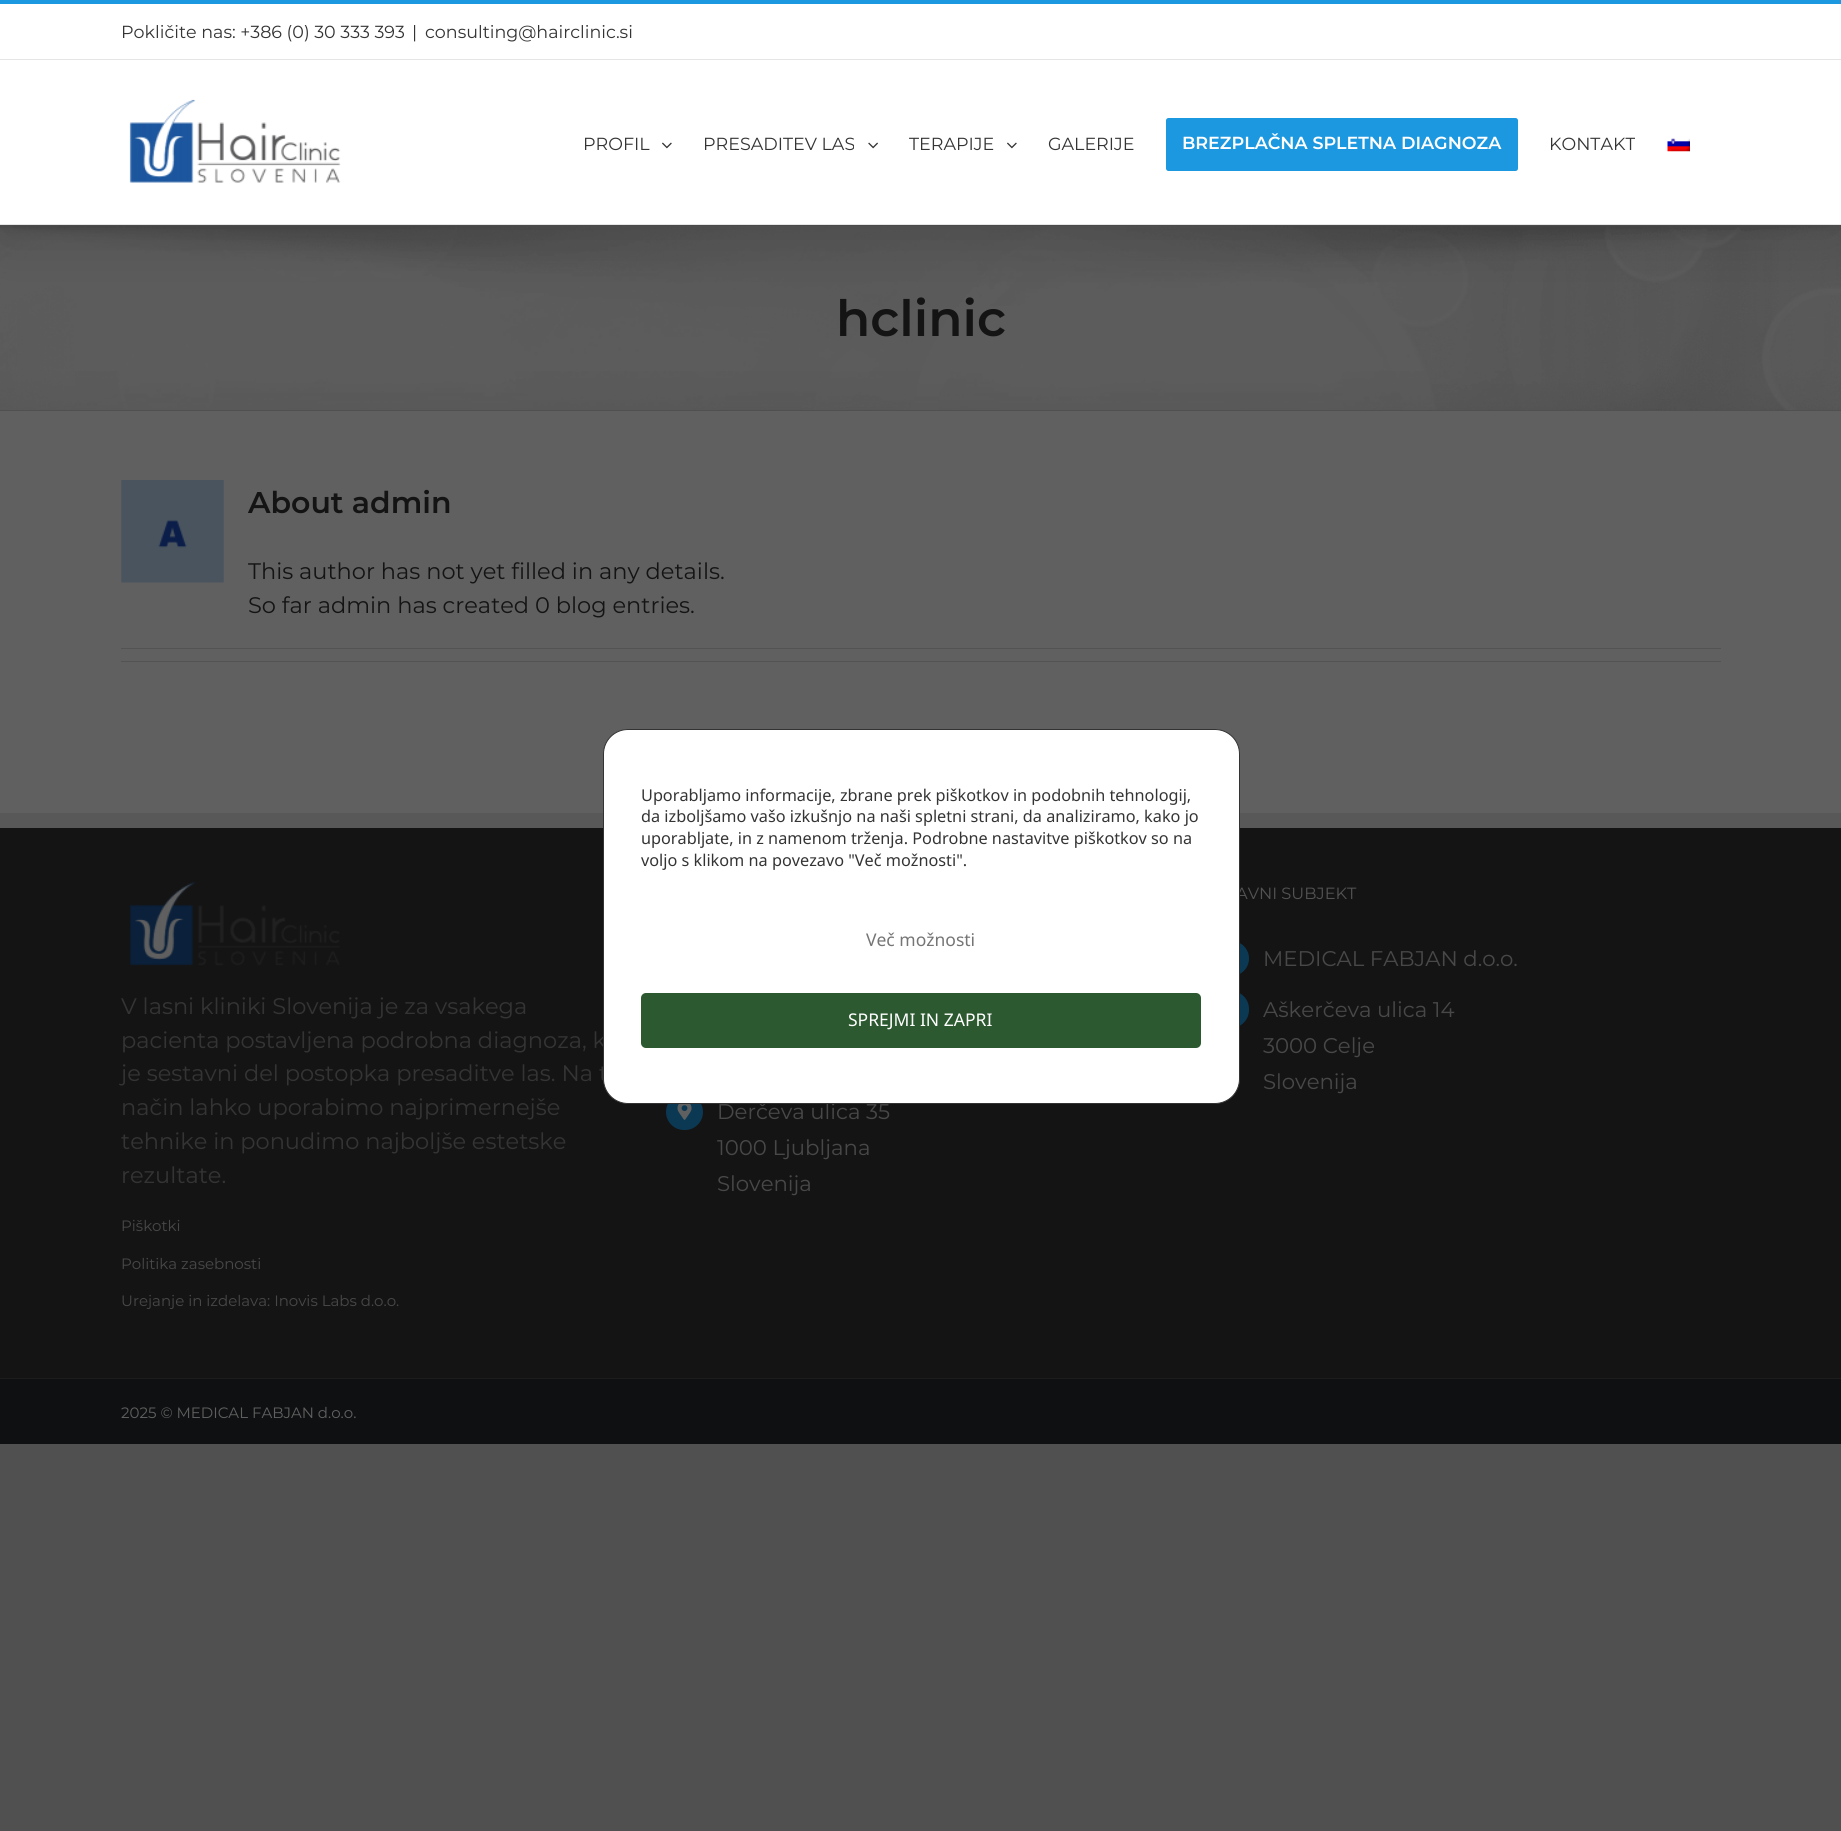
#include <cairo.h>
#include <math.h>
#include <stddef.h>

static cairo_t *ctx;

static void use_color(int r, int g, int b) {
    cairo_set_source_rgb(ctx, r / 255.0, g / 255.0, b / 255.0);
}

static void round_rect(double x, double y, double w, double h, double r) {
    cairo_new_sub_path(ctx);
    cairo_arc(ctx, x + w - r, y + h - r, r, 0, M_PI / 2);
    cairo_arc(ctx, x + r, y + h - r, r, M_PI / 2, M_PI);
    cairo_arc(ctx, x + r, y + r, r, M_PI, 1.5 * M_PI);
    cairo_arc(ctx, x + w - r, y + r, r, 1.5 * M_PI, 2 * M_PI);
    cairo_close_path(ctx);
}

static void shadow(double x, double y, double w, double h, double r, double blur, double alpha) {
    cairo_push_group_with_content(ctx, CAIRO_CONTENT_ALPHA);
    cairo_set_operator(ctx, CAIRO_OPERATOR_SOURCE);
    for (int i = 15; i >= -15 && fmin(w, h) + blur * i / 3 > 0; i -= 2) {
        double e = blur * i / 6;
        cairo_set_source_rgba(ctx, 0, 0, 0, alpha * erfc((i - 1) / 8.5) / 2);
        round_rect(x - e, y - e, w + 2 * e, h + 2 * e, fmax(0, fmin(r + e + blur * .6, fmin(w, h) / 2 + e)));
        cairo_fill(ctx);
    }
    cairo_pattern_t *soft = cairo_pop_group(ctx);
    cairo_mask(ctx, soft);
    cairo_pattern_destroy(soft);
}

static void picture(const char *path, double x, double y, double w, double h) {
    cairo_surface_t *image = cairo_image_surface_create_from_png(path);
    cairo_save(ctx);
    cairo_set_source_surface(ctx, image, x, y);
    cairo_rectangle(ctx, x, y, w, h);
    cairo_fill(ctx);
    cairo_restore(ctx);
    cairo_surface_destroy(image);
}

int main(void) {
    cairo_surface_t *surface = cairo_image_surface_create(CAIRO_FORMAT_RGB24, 1841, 1831);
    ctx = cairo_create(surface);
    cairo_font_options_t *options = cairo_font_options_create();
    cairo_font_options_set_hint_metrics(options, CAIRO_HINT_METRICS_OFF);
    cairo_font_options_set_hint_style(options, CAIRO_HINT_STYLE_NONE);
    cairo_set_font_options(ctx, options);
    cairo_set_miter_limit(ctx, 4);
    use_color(81, 80, 80);
    cairo_paint(ctx);
    use_color(92, 92, 92);
    cairo_rectangle(ctx, 0, 226, 1841, 184);
    cairo_fill(ctx);
    picture("img5.png", 0, 226, 1841, 184);
    use_color(0, 0, 0);
    shadow(3, 15, 1836, 220, 0, 31, 0.14);
    use_color(255, 255, 255);
    cairo_rectangle(ctx, 0, 4, 1841, 55);
    cairo_fill(ctx);
    use_color(27, 152, 224);
    cairo_rectangle(ctx, 0, 0, 1841, 4);
    cairo_fill(ctx);
    use_color(229, 229, 229);
    cairo_rectangle(ctx, 0, 59, 1841, 1);
    cairo_fill(ctx);
    cairo_select_font_face(ctx, "Montserrat", CAIRO_FONT_SLANT_NORMAL, CAIRO_FONT_WEIGHT_NORMAL);
    cairo_set_font_size(ctx, 17.5);
    use_color(53, 52, 52);
    cairo_move_to(ctx, 121, 38);
    cairo_show_text(ctx, "Pokličite nas: +386 (0) 30 333 393");
    cairo_move_to(ctx, 412, 38);
    cairo_show_text(ctx, "|");
    cairo_move_to(ctx, 425, 38);
    cairo_show_text(ctx, "consulting@hairclinic.si");
    use_color(255, 255, 255);
    cairo_rectangle(ctx, 0, 60, 1841, 164);
    cairo_fill(ctx);
    use_color(229, 229, 229);
    cairo_rectangle(ctx, 0, 224, 1841, 1);
    cairo_fill(ctx);
    picture("img1.png", 129, 99, 212, 84);
    use_color(53, 52, 52);
    cairo_move_to(ctx, 583, 150);
    cairo_show_text(ctx, "PROFIL");
    picture("img2.png", 662, 142, 10, 7);
    cairo_move_to(ctx, 703, 150);
    cairo_show_text(ctx, "PRESADITEV LAS");
    picture("img3.png", 868, 142, 10, 7);
    cairo_move_to(ctx, 909, 150);
    cairo_show_text(ctx, "TERAPIJE");
    picture("img2.png", 1007, 142, 10, 7);
    cairo_move_to(ctx, 1048, 150);
    cairo_show_text(ctx, "GALERIJE");
    use_color(27, 152, 224);
    round_rect(1166, 118, 352, 53, 2.5);
    cairo_fill(ctx);
    cairo_select_font_face(ctx, "Montserrat SemiBold", CAIRO_FONT_SLANT_NORMAL, CAIRO_FONT_WEIGHT_NORMAL);
    use_color(255, 255, 255);
    cairo_move_to(ctx, 1182, 149);
    cairo_show_text(ctx, "BREZPLAČNA SPLETNA DIAGNOZA");
    cairo_select_font_face(ctx, "Montserrat", CAIRO_FONT_SLANT_NORMAL, CAIRO_FONT_WEIGHT_NORMAL);
    use_color(53, 52, 52);
    cairo_move_to(ctx, 1549, 150);
    cairo_show_text(ctx, "KONTAKT");
    picture("img4.png", 1667, 138, 23, 14);
    cairo_select_font_face(ctx, "Montserrat SemiBold", CAIRO_FONT_SLANT_NORMAL, CAIRO_FONT_WEIGHT_NORMAL);
    cairo_set_font_size(ctx, 50);
    use_color(20, 20, 20);
    cairo_move_to(ctx, 836, 336);
    cairo_show_text(ctx, "hclinic");
    use_color(96, 96, 96);
    cairo_rectangle(ctx, 0, 411, 1841, 402);
    cairo_fill(ctx);
    picture("img6.png", 121, 480, 103, 103);
    cairo_set_font_size(ctx, 30);
    use_color(20, 20, 20);
    cairo_move_to(ctx, 248, 513);
    cairo_show_text(ctx, "About admin");
    cairo_select_font_face(ctx, "Montserrat", CAIRO_FONT_SLANT_NORMAL, CAIRO_FONT_WEIGHT_NORMAL);
    cairo_set_font_size(ctx, 22.5);
    cairo_move_to(ctx, 248, 579);
    cairo_show_text(ctx, "This author has not yet filled in any details.");
    cairo_move_to(ctx, 248, 613);
    cairo_show_text(ctx, "So far admin has created 0 blog entries.");
    use_color(84, 83, 83);
    cairo_rectangle(ctx, 121, 648, 1600, 1);
    cairo_fill(ctx);
    cairo_rectangle(ctx, 121, 661, 1600, 1);
    cairo_fill(ctx);
    use_color(20, 20, 20);
    cairo_rectangle(ctx, 0, 828, 1841, 550);
    cairo_fill(ctx);
    use_color(88, 88, 89);
    cairo_rectangle(ctx, 0, 813, 1841, 15);
    cairo_fill(ctx);
    picture("img7.png", 129, 882, 211, 84);
    use_color(53, 52, 52);
    cairo_move_to(ctx, 121, 1014);
    cairo_show_text(ctx, "V lasni kliniki Slovenija je za vsakega");
    cairo_move_to(ctx, 121, 1048);
    cairo_show_text(ctx, "pacienta postavljena podrobna diagnoza, k");
    cairo_move_to(ctx, 121, 1081);
    cairo_show_text(ctx, "je sestavni del postopka presaditve las. Na t");
    cairo_move_to(ctx, 121, 1115);
    cairo_show_text(ctx, "način lahko uporabimo najprimernejše");
    cairo_move_to(ctx, 121, 1149);
    cairo_show_text(ctx, "tehnike in ponudimo najboljše estetske");
    cairo_move_to(ctx, 121, 1183);
    cairo_show_text(ctx, "rezultate.");
    cairo_set_font_size(ctx, 15);
    use_color(72, 72, 72);
    cairo_move_to(ctx, 121, 1231);
    cairo_show_text(ctx, "Piškotki");
    cairo_move_to(ctx, 121, 1269);
    cairo_show_text(ctx, "Politika zasebnosti");
    cairo_move_to(ctx, 121, 1306);
    cairo_show_text(ctx, "Urejanje in izdelava: Inovis Labs d.o.o.");
    use_color(11, 57, 84);
    round_rect(666, 1094, 37, 36, 18);
    cairo_fill(ctx);
    picture("img8.png", 677, 1104, 15, 16);
    cairo_set_font_size(ctx, 21.25);
    use_color(72, 72, 72);
    cairo_move_to(ctx, 717, 1119);
    cairo_show_text(ctx, "Derčeva ulica 35");
    cairo_move_to(ctx, 717, 1155);
    cairo_show_text(ctx, "1000 Ljubljana");
    cairo_move_to(ctx, 717, 1191);
    cairo_show_text(ctx, "Slovenija");
    cairo_set_font_size(ctx, 16.25);
    use_color(83, 83, 83);
    cairo_move_to(ctx, 1236, 899);
    cairo_show_text(ctx, "AVNI SUBJEKT");
    use_color(11, 57, 84);
    round_rect(1213, 941, 36, 35, 17.5);
    cairo_fill(ctx);
    cairo_set_font_size(ctx, 21.25);
    use_color(72, 72, 72);
    cairo_move_to(ctx, 1263, 966);
    cairo_show_text(ctx, "MEDICAL FABJAN d.o.o.");
    use_color(11, 57, 84);
    round_rect(1213, 991, 36, 37, 18);
    cairo_fill(ctx);
    use_color(72, 72, 72);
    cairo_move_to(ctx, 1263, 1017);
    cairo_show_text(ctx, "Aškerčeva ulica 14");
    cairo_move_to(ctx, 1263, 1053);
    cairo_show_text(ctx, "3000 Celje");
    cairo_move_to(ctx, 1263, 1089);
    cairo_show_text(ctx, "Slovenija");
    use_color(15, 16, 17);
    cairo_rectangle(ctx, 0, 1379, 1841, 65);
    cairo_fill(ctx);
    use_color(29, 29, 29);
    cairo_rectangle(ctx, 0, 1378, 1841, 1);
    cairo_fill(ctx);
    cairo_set_font_size(ctx, 15);
    use_color(96, 96, 96);
    cairo_move_to(ctx, 121, 1418);
    cairo_show_text(ctx, "2025 © MEDICAL FABJAN d.o.o.");
    use_color(255, 255, 255);
    round_rect(603.5, 729.5, 636, 374, 24.5);
    cairo_fill_preserve(ctx);
    use_color(51, 51, 51);
    cairo_set_line_width(ctx, 1);
    cairo_stroke(ctx);
    cairo_select_font_face(ctx, "Noto Sans", CAIRO_FONT_SLANT_NORMAL, CAIRO_FONT_WEIGHT_NORMAL);
    cairo_set_font_size(ctx, 16.25);
    use_color(53, 52, 52);
    cairo_move_to(ctx, 641, 801);
    cairo_show_text(ctx, "Uporabljamo informacije, zbrane prek piškotkov in podobnih tehnologij,");
    cairo_move_to(ctx, 641, 822);
    cairo_show_text(ctx, "da izboljšamo vašo izkušnjo na naši spletni strani, da analiziramo, kako jo");
    cairo_move_to(ctx, 641, 844);
    cairo_show_text(ctx, "uporabljate, in z namenom trženja. Podrobne nastavitve piškotkov so na");
    cairo_move_to(ctx, 641, 866);
    cairo_show_text(ctx, "voljo s klikom na povezavo \"Več možnosti\".");
    cairo_set_font_size(ctx, 17.5);
    use_color(117, 117, 117);
    cairo_move_to(ctx, 866, 946);
    cairo_show_text(ctx, "Več možnosti");
    use_color(44, 89, 47);
    round_rect(641, 993, 560, 55, 5);
    cairo_fill(ctx);
    use_color(255, 255, 255);
    cairo_move_to(ctx, 848, 1026);
    cairo_show_text(ctx, "SPREJMI IN ZAPRI");
    cairo_surface_write_to_png(surface, "result.png");
    cairo_font_options_destroy(options);
    cairo_destroy(ctx);
    cairo_surface_destroy(surface);
    return 0;
}
